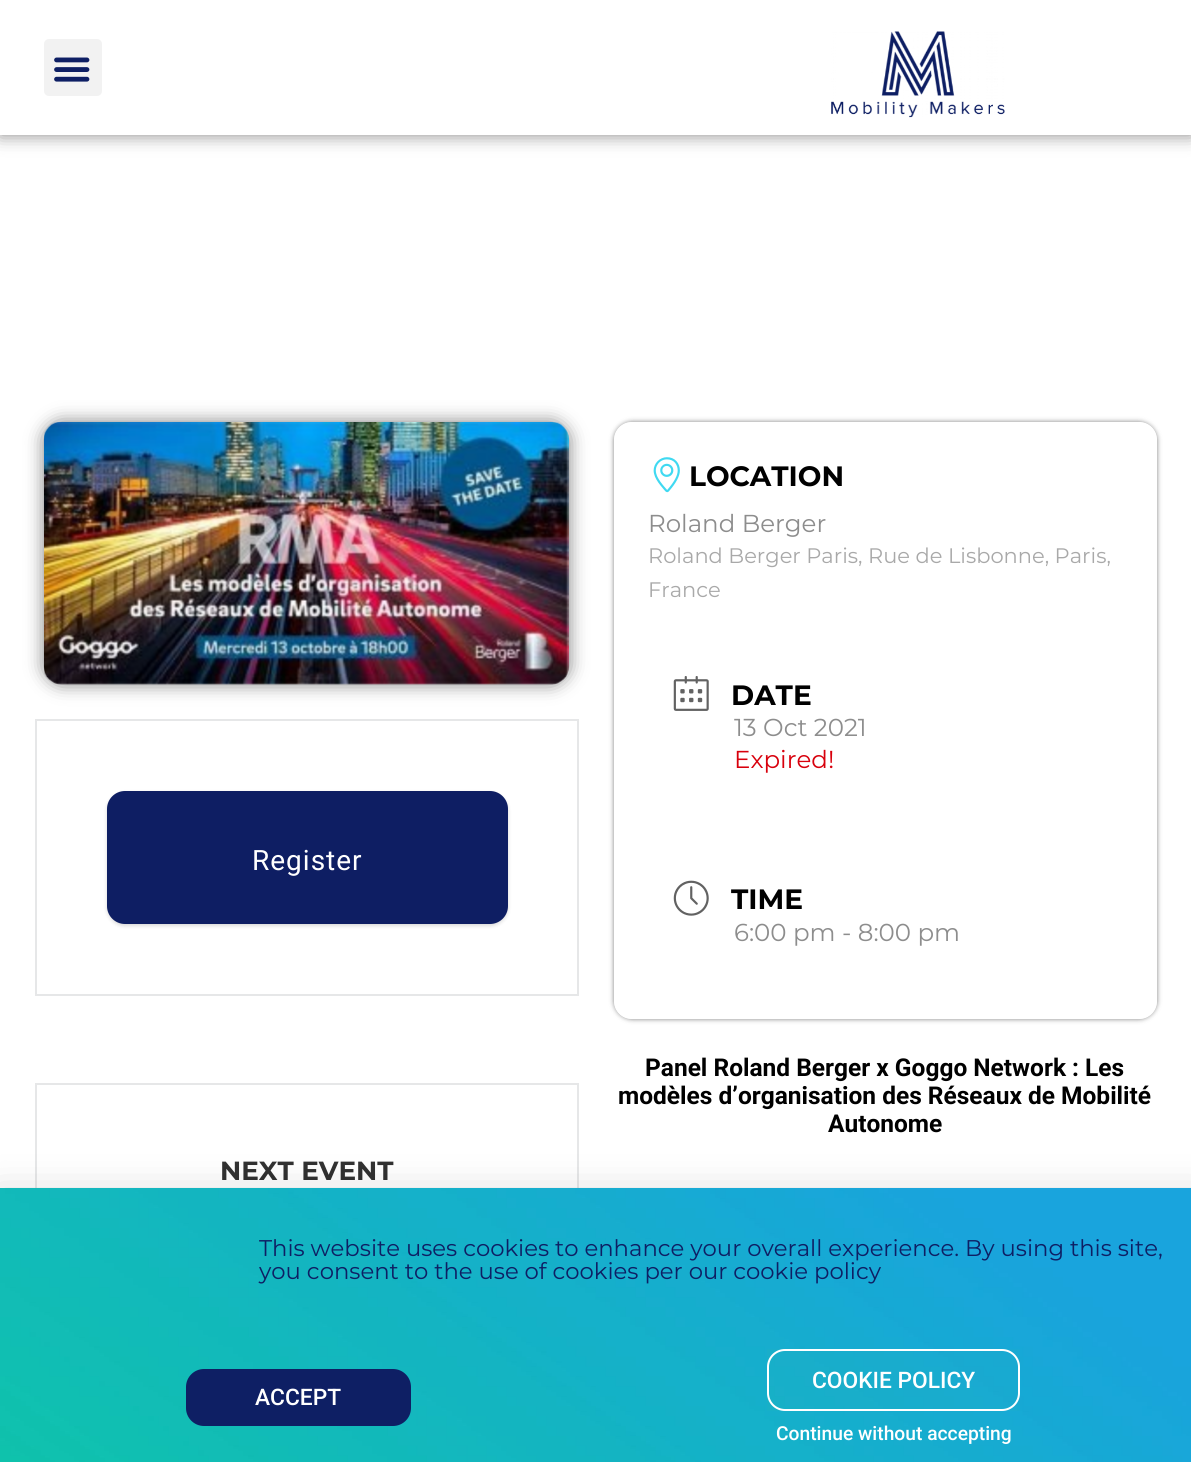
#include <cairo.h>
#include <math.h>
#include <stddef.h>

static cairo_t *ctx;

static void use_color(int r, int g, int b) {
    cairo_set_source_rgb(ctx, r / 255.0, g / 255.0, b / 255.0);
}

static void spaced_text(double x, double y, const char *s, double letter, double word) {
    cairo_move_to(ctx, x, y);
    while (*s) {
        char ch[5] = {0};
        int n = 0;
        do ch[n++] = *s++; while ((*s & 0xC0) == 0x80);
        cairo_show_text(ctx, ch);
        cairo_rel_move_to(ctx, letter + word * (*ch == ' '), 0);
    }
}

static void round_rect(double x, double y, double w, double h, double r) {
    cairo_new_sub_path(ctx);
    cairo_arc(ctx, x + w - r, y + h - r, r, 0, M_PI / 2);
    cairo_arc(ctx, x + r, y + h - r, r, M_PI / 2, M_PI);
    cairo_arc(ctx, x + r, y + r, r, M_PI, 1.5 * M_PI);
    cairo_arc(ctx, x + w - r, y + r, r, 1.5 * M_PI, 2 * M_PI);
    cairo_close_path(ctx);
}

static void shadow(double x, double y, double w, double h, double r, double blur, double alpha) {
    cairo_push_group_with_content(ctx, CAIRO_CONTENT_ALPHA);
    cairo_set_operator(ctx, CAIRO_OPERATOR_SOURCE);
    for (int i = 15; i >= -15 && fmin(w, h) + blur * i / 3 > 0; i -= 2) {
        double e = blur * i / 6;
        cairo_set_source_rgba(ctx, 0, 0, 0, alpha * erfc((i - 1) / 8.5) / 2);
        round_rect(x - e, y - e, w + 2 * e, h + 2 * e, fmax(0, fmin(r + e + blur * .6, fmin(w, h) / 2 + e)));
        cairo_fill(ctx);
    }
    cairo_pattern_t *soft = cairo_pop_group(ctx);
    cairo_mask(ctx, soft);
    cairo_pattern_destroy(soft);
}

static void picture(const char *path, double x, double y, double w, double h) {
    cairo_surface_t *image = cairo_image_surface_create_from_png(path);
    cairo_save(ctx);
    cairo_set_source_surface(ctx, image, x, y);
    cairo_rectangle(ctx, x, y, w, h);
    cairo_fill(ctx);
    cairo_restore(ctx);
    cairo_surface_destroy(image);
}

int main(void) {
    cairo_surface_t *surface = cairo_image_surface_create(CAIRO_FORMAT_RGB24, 1191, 1462);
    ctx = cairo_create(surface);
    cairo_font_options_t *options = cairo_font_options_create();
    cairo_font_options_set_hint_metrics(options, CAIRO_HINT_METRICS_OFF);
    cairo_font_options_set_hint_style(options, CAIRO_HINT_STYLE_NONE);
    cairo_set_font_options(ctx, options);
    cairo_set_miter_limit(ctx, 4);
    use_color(255, 255, 255);
    cairo_paint(ctx);
    use_color(19, 17, 17);
    shadow(0, 0, 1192, 135, 0, 9, 0.5);
    use_color(255, 255, 255);
    cairo_rectangle(ctx, 0, 0, 1191, 135);
    cairo_fill(ctx);
    use_color(242, 242, 242);
    round_rect(44, 39, 58, 57, 5);
    cairo_fill(ctx);
    picture("img1.png", 54, 57, 36, 25);
    picture("img2.png", 831, 31, 174, 87);
    use_color(0, 0, 0);
    shadow(44, 422, 525, 262, 18, 9, 0.5);
    picture("img3.png", 44, 422, 525, 263);
    cairo_rectangle(ctx, 36, 720, 542, 275);
    use_color(230, 231, 232);
    cairo_stroke(ctx);
    use_color(0, 0, 0);
    shadow(107, 793, 401, 133, 18, 2, 0.15);
    use_color(14, 30, 99);
    round_rect(107, 791, 401, 133, 18);
    cairo_fill(ctx);
    cairo_select_font_face(ctx, "Roboto", CAIRO_FONT_SLANT_NORMAL, CAIRO_FONT_WEIGHT_NORMAL);
    cairo_set_font_size(ctx, 28);
    use_color(255, 255, 255);
    spaced_text(252, 870, "Register", 1, 0);
    cairo_rectangle(ctx, 36, 1084, 542, 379);
    use_color(230, 231, 232);
    cairo_stroke(ctx);
    cairo_select_font_face(ctx, "Montserrat", CAIRO_FONT_SLANT_NORMAL, CAIRO_FONT_WEIGHT_BOLD);
    cairo_set_font_size(ctx, 26.25);
    use_color(49, 49, 49);
    cairo_move_to(ctx, 220, 1180);
    cairo_show_text(ctx, "NEXT EVENT");
    cairo_save(ctx);
    cairo_set_fill_rule(ctx, CAIRO_FILL_RULE_EVEN_ODD);
    cairo_new_path(ctx);
    cairo_move_to(ctx, 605, 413);
    cairo_line_to(ctx, 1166, 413);
    cairo_line_to(ctx, 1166, 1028);
    cairo_line_to(ctx, 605, 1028);
    cairo_close_path(ctx);
    cairo_move_to(ctx, 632, 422);
    cairo_line_to(ctx, 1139, 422);
    cairo_curve_to(ctx, 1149, 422, 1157, 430, 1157, 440);
    cairo_line_to(ctx, 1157, 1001);
    cairo_curve_to(ctx, 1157, 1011, 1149, 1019, 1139, 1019);
    cairo_line_to(ctx, 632, 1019);
    cairo_curve_to(ctx, 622, 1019, 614, 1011, 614, 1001);
    cairo_line_to(ctx, 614, 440);
    cairo_curve_to(ctx, 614, 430, 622, 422, 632, 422);
    cairo_close_path(ctx);
    cairo_clip(ctx);
    use_color(0, 0, 0);
    shadow(614, 422, 543, 597, 18, 2.5, 0.5);
    cairo_restore(ctx);
    picture("img4.png", 653, 457, 27, 36);
    cairo_set_font_size(ctx, 28);
    use_color(0, 0, 0);
    cairo_move_to(ctx, 689, 486);
    cairo_show_text(ctx, "LOCATION");
    cairo_select_font_face(ctx, "Montserrat", CAIRO_FONT_SLANT_NORMAL, CAIRO_FONT_WEIGHT_NORMAL);
    cairo_set_font_size(ctx, 24.5);
    use_color(141, 141, 141);
    cairo_move_to(ctx, 648, 532);
    cairo_show_text(ctx, "Roland Berger");
    cairo_set_font_size(ctx, 21);
    use_color(169, 169, 169);
    cairo_move_to(ctx, 648, 563);
    cairo_show_text(ctx, "Roland Berger Paris, Rue de Lisbonne, Paris,");
    cairo_move_to(ctx, 648, 597);
    cairo_show_text(ctx, "France");
    picture("img5.png", 673, 676, 36, 35);
    cairo_select_font_face(ctx, "Montserrat", CAIRO_FONT_SLANT_NORMAL, CAIRO_FONT_WEIGHT_BOLD);
    cairo_set_font_size(ctx, 28);
    use_color(0, 0, 0);
    cairo_move_to(ctx, 731, 705);
    cairo_show_text(ctx, "DATE");
    cairo_select_font_face(ctx, "Montserrat", CAIRO_FONT_SLANT_NORMAL, CAIRO_FONT_WEIGHT_NORMAL);
    cairo_set_font_size(ctx, 24.5);
    use_color(141, 141, 141);
    cairo_move_to(ctx, 734, 736);
    cairo_show_text(ctx, "13 Oct 2021");
    use_color(216, 0, 12);
    cairo_move_to(ctx, 734, 768);
    cairo_show_text(ctx, "Expired!");
    picture("img6.png", 673, 880, 36, 36);
    cairo_select_font_face(ctx, "Montserrat", CAIRO_FONT_SLANT_NORMAL, CAIRO_FONT_WEIGHT_BOLD);
    cairo_set_font_size(ctx, 28);
    use_color(0, 0, 0);
    cairo_move_to(ctx, 731, 909);
    cairo_show_text(ctx, "TIME");
    cairo_select_font_face(ctx, "Montserrat", CAIRO_FONT_SLANT_NORMAL, CAIRO_FONT_WEIGHT_NORMAL);
    cairo_set_font_size(ctx, 24.5);
    use_color(141, 141, 141);
    cairo_move_to(ctx, 734, 941);
    cairo_show_text(ctx, "6:00 pm - 8:00 pm");
    cairo_select_font_face(ctx, "Roboto", CAIRO_FONT_SLANT_NORMAL, CAIRO_FONT_WEIGHT_BOLD);
    use_color(0, 0, 0);
    cairo_move_to(ctx, 645, 1076);
    cairo_show_text(ctx, "Panel Roland Berger x Goggo Network : Les");
    cairo_move_to(ctx, 618, 1104);
    cairo_show_text(ctx, "modèles d’organisation des Réseaux de Mobilité");
    cairo_move_to(ctx, 828, 1132);
    cairo_show_text(ctx, "Autonome");
    use_color(0, 0, 0);
    shadow(-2, 1197, 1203, 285, 0, 20, 0.2);
    picture("img7.png", 0, 1188, 1191, 274);
    cairo_select_font_face(ctx, "Montserrat", CAIRO_FONT_SLANT_NORMAL, CAIRO_FONT_WEIGHT_NORMAL);
    cairo_set_font_size(ctx, 22.75);
    use_color(14, 31, 100);
    cairo_move_to(ctx, 259, 1256);
    cairo_show_text(ctx, "This website uses cookies to enhance your overall experience. By using this site,");
    cairo_move_to(ctx, 259, 1279);
    cairo_show_text(ctx, "you consent to the use of cookies per our cookie policy");
    round_rect(186, 1369, 225, 57, 18);
    cairo_fill(ctx);
    cairo_select_font_face(ctx, "Roboto Medium", CAIRO_FONT_SLANT_NORMAL, CAIRO_FONT_WEIGHT_NORMAL);
    use_color(255, 255, 255);
    cairo_move_to(ctx, 255, 1405);
    cairo_show_text(ctx, "ACCEPT");
    cairo_set_source_rgba(ctx, 0.38, 0.808, 0.439, 0.04);
    cairo_rectangle(ctx, 767, 1349, 253, 62);
    cairo_fill(ctx);
    round_rect(768, 1350, 251, 60, 17);
    use_color(255, 255, 255);
    cairo_stroke(ctx);
    cairo_move_to(ctx, 812, 1388);
    cairo_show_text(ctx, "COOKIE POLICY");
    cairo_set_font_size(ctx, 19.25);
    cairo_move_to(ctx, 776, 1440);
    cairo_show_text(ctx, "Continue without accepting");
    cairo_surface_write_to_png(surface, "result.png");
    cairo_font_options_destroy(options);
    cairo_destroy(ctx);
    cairo_surface_destroy(surface);
    return 0;
}
